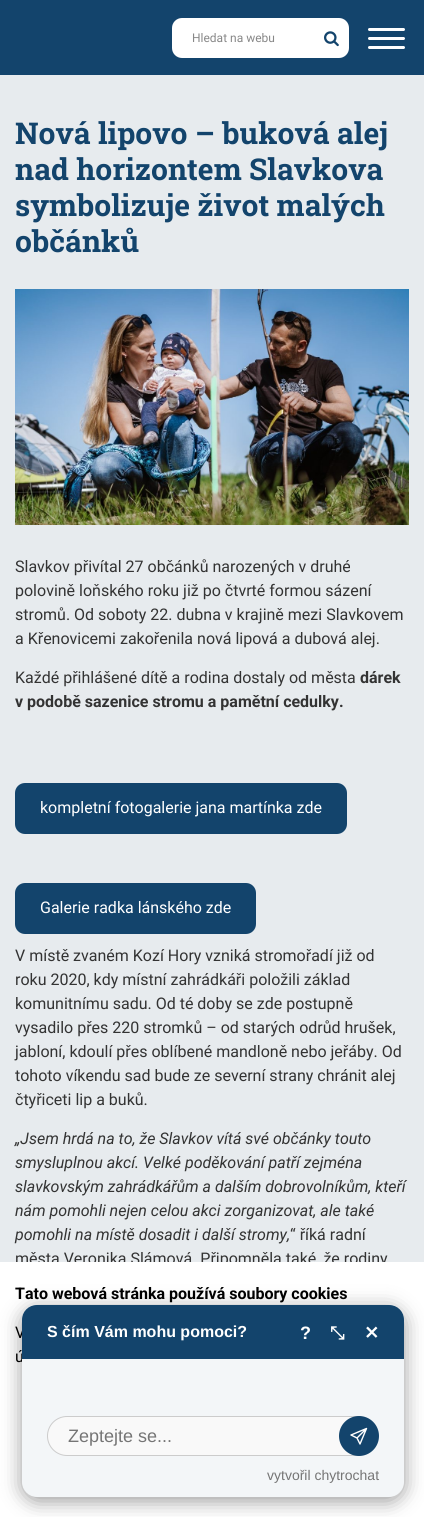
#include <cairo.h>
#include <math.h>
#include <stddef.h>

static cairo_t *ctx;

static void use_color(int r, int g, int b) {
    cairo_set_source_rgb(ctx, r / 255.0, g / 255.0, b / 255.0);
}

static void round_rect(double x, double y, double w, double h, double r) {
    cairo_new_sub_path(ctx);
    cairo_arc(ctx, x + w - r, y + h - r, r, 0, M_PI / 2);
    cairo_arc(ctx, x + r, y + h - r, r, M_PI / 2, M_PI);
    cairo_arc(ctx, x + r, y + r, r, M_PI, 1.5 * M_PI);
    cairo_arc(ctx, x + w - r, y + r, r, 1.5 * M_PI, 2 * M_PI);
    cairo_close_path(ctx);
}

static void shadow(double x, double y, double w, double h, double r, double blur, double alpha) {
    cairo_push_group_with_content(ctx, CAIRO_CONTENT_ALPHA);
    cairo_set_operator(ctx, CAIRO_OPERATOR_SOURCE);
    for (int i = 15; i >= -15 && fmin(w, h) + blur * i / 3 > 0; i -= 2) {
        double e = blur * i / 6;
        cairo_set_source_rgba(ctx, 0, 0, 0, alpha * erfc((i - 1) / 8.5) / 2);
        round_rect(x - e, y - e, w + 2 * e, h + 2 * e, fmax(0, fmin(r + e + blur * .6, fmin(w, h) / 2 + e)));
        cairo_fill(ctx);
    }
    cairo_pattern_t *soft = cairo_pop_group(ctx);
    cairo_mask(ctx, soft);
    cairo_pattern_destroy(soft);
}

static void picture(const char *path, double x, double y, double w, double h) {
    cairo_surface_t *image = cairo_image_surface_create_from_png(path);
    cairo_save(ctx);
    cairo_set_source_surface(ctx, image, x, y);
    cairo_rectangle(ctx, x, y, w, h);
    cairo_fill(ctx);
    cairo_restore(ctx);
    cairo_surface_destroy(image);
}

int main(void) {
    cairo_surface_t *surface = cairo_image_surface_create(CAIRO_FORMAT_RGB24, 424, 1517);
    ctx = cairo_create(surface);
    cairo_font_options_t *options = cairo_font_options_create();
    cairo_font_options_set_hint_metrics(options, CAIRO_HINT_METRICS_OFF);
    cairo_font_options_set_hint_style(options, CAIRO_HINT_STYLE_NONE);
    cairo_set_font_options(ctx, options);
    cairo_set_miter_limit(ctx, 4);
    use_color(231, 235, 238);
    cairo_paint(ctx);
    use_color(19, 68, 108);
    cairo_rectangle(ctx, 0, 0, 424, 75);
    cairo_fill(ctx);
    use_color(255, 255, 255);
    round_rect(172, 18, 177, 40, 10);
    cairo_fill(ctx);
    cairo_select_font_face(ctx, "Roboto", CAIRO_FONT_SLANT_NORMAL, CAIRO_FONT_WEIGHT_NORMAL);
    cairo_set_font_size(ctx, 12);
    use_color(136, 136, 136);
    cairo_move_to(ctx, 192, 42);
    cairo_show_text(ctx, "Hledat na webu");
    picture("img1.png", 324, 31, 15, 16);
    use_color(255, 255, 255);
    round_rect(368, 37, 37, 3, 1.5);
    cairo_fill(ctx);
    round_rect(368, 28, 37, 3, 1.5);
    cairo_fill(ctx);
    round_rect(368, 46, 37, 3, 1.5);
    cairo_fill(ctx);
    cairo_select_font_face(ctx, "Roboto Slab", CAIRO_FONT_SLANT_NORMAL, CAIRO_FONT_WEIGHT_BOLD);
    cairo_set_font_size(ctx, 30);
    use_color(19, 68, 108);
    cairo_move_to(ctx, 15, 144);
    cairo_show_text(ctx, "Nová lipovo – buková alej");
    cairo_move_to(ctx, 15, 180);
    cairo_show_text(ctx, "nad horizontem Slavkova");
    cairo_move_to(ctx, 15, 216);
    cairo_show_text(ctx, "symbolizuje život malých");
    cairo_move_to(ctx, 15, 252);
    cairo_show_text(ctx, "občánků");
    picture("img2.png", 15, 289, 394, 236);
    cairo_select_font_face(ctx, "Roboto", CAIRO_FONT_SLANT_NORMAL, CAIRO_FONT_WEIGHT_NORMAL);
    cairo_set_font_size(ctx, 16);
    use_color(51, 51, 51);
    cairo_move_to(ctx, 15, 572);
    cairo_show_text(ctx, "Slavkov přivítal 27 občánků narozených v druhé");
    cairo_move_to(ctx, 15, 596);
    cairo_show_text(ctx, "polovině loňského roku již po čtvrté formou sázení");
    cairo_move_to(ctx, 15, 620);
    cairo_show_text(ctx, "stromů. Od soboty 22. dubna v krajině mezi Slavkovem");
    cairo_move_to(ctx, 15, 644);
    cairo_show_text(ctx, "a Křenovicemi zakořenila nová lipová a dubová alej.");
    cairo_move_to(ctx, 15, 683);
    cairo_show_text(ctx, "Každé přihlášené dítě a rodina dostaly od města");
    cairo_select_font_face(ctx, "Roboto", CAIRO_FONT_SLANT_NORMAL, CAIRO_FONT_WEIGHT_BOLD);
    cairo_move_to(ctx, 360, 683);
    cairo_show_text(ctx, "dárek");
    cairo_move_to(ctx, 15, 707);
    cairo_show_text(ctx, "v podobě sazenice stromu a pamětní cedulky.");
    use_color(19, 68, 108);
    round_rect(15, 783, 332, 51, 10);
    cairo_fill(ctx);
    cairo_select_font_face(ctx, "Roboto", CAIRO_FONT_SLANT_NORMAL, CAIRO_FONT_WEIGHT_NORMAL);
    use_color(255, 255, 255);
    cairo_move_to(ctx, 40, 813);
    cairo_show_text(ctx, "kompletní fotogalerie jana martínka zde");
    use_color(19, 68, 108);
    round_rect(15, 883, 241, 51, 10);
    cairo_fill(ctx);
    use_color(255, 255, 255);
    cairo_move_to(ctx, 40, 913);
    cairo_show_text(ctx, "Galerie radka lánského zde");
    use_color(51, 51, 51);
    cairo_move_to(ctx, 15, 961);
    cairo_show_text(ctx, "V místě zvaném Kozí Hory vzniká stromořadí již od");
    cairo_move_to(ctx, 15, 985);
    cairo_show_text(ctx, "roku 2020, kdy místní zahrádkáři položili základ");
    cairo_move_to(ctx, 15, 1009);
    cairo_show_text(ctx, "komunitnímu sadu. Od té doby se zde postupně");
    cairo_move_to(ctx, 15, 1033);
    cairo_show_text(ctx, "vysadilo přes 220 stromků – od starých odrůd hrušek,");
    cairo_move_to(ctx, 15, 1057);
    cairo_show_text(ctx, "jabloní, kdoulí přes oblíbené mandloně nebo jeřáby. Od");
    cairo_move_to(ctx, 15, 1081);
    cairo_show_text(ctx, "tohoto víkendu sad bude ze severní strany chránit alej");
    cairo_move_to(ctx, 15, 1105);
    cairo_show_text(ctx, "čtyřiceti lip a buků.");
    cairo_select_font_face(ctx, "Roboto", CAIRO_FONT_SLANT_ITALIC, CAIRO_FONT_WEIGHT_NORMAL);
    cairo_move_to(ctx, 15, 1144);
    cairo_show_text(ctx, "„Jsem hrdá na to, že Slavkov vítá své občánky touto");
    cairo_move_to(ctx, 15, 1168);
    cairo_show_text(ctx, "smysluplnou akcí. Velké poděkování patří zejména");
    cairo_move_to(ctx, 15, 1192);
    cairo_show_text(ctx, "slavkovským zahrádkářům a dalším dobrovolníkům, kteří");
    cairo_move_to(ctx, 15, 1216);
    cairo_show_text(ctx, "nám pomohli nejen celou akci zorganizovat, ale také");
    cairo_move_to(ctx, 15, 1240);
    cairo_show_text(ctx, "pomohli na místě dosadit i další stromy,");
    cairo_select_font_face(ctx, "Roboto", CAIRO_FONT_SLANT_NORMAL, CAIRO_FONT_WEIGHT_NORMAL);
    cairo_move_to(ctx, 290, 1240);
    cairo_show_text(ctx, "“ říká radní");
    cairo_move_to(ctx, 15, 1264);
    cairo_show_text(ctx, "města Veronika Slámová. Připomněla také, že rodiny");
    use_color(255, 255, 255);
    cairo_rectangle(ctx, 0, 1262, 424, 255);
    cairo_fill(ctx);
    cairo_select_font_face(ctx, "Roboto", CAIRO_FONT_SLANT_NORMAL, CAIRO_FONT_WEIGHT_BOLD);
    use_color(0, 0, 0);
    cairo_move_to(ctx, 15, 1299);
    cairo_show_text(ctx, "Tato webová stránka používá soubory cookies");
    cairo_select_font_face(ctx, "Roboto", CAIRO_FONT_SLANT_NORMAL, CAIRO_FONT_WEIGHT_NORMAL);
    cairo_move_to(ctx, 15, 1338);
    cairo_show_text(ctx, "V");
    cairo_move_to(ctx, 15, 1362);
    cairo_show_text(ctx, "ú");
    use_color(0, 0, 0);
    shadow(22, 1309, 382, 192, 15, 10, 0.4);
    use_color(243, 246, 248);
    round_rect(22, 1305, 382, 192, 15);
    cairo_fill(ctx);
    use_color(19, 68, 108);
    cairo_new_path(ctx);
    cairo_move_to(ctx, 37, 1305);
    cairo_line_to(ctx, 389, 1305);
    cairo_curve_to(ctx, 397.5, 1305, 404, 1311.5, 404, 1320);
    cairo_line_to(ctx, 404, 1359);
    cairo_line_to(ctx, 22, 1359);
    cairo_line_to(ctx, 22, 1320);
    cairo_curve_to(ctx, 22, 1311.5, 28.5, 1305, 37, 1305);
    cairo_close_path(ctx);
    cairo_fill(ctx);
    cairo_select_font_face(ctx, "Liberation Sans", CAIRO_FONT_SLANT_NORMAL, CAIRO_FONT_WEIGHT_BOLD);
    use_color(255, 255, 255);
    cairo_move_to(ctx, 47, 1337);
    cairo_show_text(ctx, "S čím Vám mohu pomoci?");
    cairo_set_font_size(ctx, 18);
    cairo_move_to(ctx, 300, 1339);
    cairo_show_text(ctx, "?");
    cairo_select_font_face(ctx, "FreeSerif", CAIRO_FONT_SLANT_NORMAL, CAIRO_FONT_WEIGHT_BOLD);
    cairo_move_to(ctx, 330, 1339);
    cairo_show_text(ctx, "⤡");
    cairo_select_font_face(ctx, "DejaVu Sans", CAIRO_FONT_SLANT_NORMAL, CAIRO_FONT_WEIGHT_BOLD);
    cairo_move_to(ctx, 364, 1339);
    cairo_show_text(ctx, "✕");
    use_color(249, 249, 249);
    round_rect(47.5, 1416.5, 328, 39, 19.5);
    cairo_fill_preserve(ctx);
    use_color(204, 204, 204);
    cairo_set_line_width(ctx, 1);
    cairo_stroke(ctx);
    cairo_select_font_face(ctx, "Liberation Sans", CAIRO_FONT_SLANT_NORMAL, CAIRO_FONT_WEIGHT_NORMAL);
    use_color(117, 117, 117);
    cairo_move_to(ctx, 68, 1442);
    cairo_show_text(ctx, "Zeptejte se...");
    use_color(19, 68, 108);
    cairo_new_path(ctx);
    cairo_arc(ctx, 359, 1436, 18.5, 0, 2 * M_PI);
    cairo_fill_preserve(ctx);
    cairo_set_line_width(ctx, 3);
    cairo_stroke(ctx);
    cairo_new_path(ctx);
    cairo_move_to(ctx, 366.5, 1428.5);
    cairo_line_to(ctx, 351, 1435);
    cairo_line_to(ctx, 357, 1438);
    cairo_move_to(ctx, 366.5, 1428.5);
    cairo_line_to(ctx, 360, 1444);
    cairo_line_to(ctx, 357, 1438);
    cairo_move_to(ctx, 366.5, 1428.5);
    cairo_line_to(ctx, 357, 1438);
    use_color(255, 255, 255);
    cairo_set_line_width(ctx, 1.4);
    cairo_set_line_cap(ctx, CAIRO_LINE_CAP_ROUND);
    cairo_set_line_join(ctx, CAIRO_LINE_JOIN_ROUND);
    cairo_stroke(ctx);
    cairo_set_font_size(ctx, 14);
    use_color(117, 117, 117);
    cairo_move_to(ctx, 267, 1480);
    cairo_show_text(ctx, "vytvořil chytrochat");
    cairo_surface_write_to_png(surface, "result.png");
    cairo_font_options_destroy(options);
    cairo_destroy(ctx);
    cairo_surface_destroy(surface);
    return 0;
}
